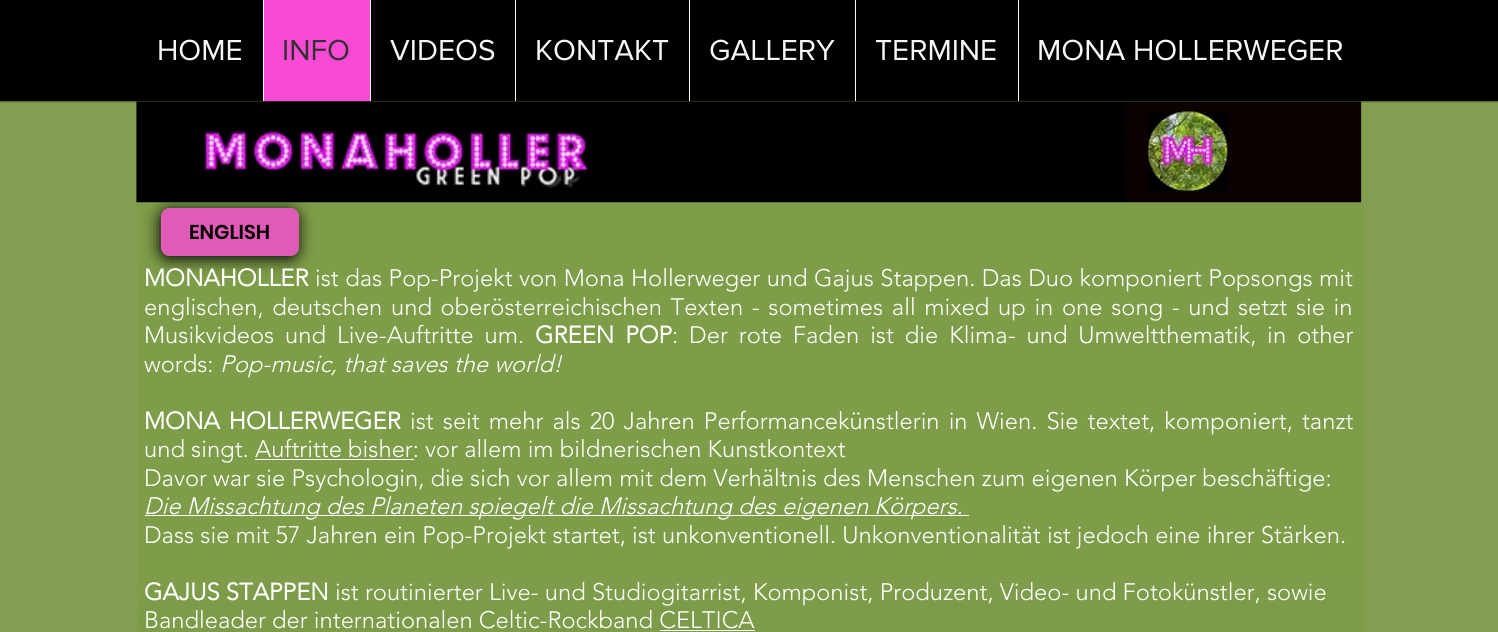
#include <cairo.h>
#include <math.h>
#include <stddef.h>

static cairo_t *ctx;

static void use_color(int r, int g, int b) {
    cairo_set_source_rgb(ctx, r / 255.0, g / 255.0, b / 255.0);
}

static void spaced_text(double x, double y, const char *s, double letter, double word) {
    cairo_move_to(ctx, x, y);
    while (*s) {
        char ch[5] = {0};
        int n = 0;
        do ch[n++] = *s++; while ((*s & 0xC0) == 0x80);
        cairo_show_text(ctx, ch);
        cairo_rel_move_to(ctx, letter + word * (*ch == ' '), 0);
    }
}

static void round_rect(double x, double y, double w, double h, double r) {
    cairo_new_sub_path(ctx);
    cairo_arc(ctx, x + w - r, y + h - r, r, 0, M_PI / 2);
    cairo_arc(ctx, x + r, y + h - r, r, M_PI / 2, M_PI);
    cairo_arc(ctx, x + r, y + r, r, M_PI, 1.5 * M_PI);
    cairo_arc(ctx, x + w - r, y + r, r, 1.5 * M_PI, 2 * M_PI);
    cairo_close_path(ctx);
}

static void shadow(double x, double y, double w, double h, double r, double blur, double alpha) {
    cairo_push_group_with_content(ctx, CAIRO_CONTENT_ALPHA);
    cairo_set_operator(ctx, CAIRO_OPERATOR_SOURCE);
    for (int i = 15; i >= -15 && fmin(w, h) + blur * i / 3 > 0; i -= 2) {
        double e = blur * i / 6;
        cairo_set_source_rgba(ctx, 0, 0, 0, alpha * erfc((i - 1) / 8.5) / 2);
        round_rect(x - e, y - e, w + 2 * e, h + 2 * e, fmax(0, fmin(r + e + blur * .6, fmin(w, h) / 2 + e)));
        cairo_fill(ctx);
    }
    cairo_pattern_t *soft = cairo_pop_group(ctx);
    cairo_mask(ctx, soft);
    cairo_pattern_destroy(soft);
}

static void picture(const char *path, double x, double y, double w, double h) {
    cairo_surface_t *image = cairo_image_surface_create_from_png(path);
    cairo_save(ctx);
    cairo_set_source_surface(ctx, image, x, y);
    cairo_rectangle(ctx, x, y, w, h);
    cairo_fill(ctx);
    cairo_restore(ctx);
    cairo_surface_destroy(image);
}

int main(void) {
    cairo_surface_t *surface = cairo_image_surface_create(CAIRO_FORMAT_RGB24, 1498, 632);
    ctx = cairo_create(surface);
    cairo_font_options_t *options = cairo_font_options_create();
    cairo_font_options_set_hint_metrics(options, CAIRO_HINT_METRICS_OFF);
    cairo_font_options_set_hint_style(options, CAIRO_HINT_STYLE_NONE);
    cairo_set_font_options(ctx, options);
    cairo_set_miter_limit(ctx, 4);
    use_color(132, 157, 81);
    cairo_paint(ctx);
    picture("img1.png", 131, 574, 51, 58);
    picture("img2.png", 181, 574, 1138, 58);
    picture("img3.png", 1318, 574, 51, 58);
    cairo_set_source_rgba(ctx, 0.478, 0.616, 0.267, 0.6);
    cairo_rectangle(ctx, 138, 101, 1225, 531);
    cairo_fill(ctx);
    picture("img4.png", 136, 101, 1226, 102);
    use_color(0, 0, 0);
    shadow(0, 0, 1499, 101, 0, 1, 1);
    use_color(0, 0, 0);
    cairo_rectangle(ctx, 0, 0, 1498, 101);
    cairo_fill(ctx);
    cairo_select_font_face(ctx, "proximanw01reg", CAIRO_FONT_SLANT_NORMAL, CAIRO_FONT_WEIGHT_NORMAL);
    cairo_set_font_size(ctx, 30);
    use_color(251, 246, 246);
    cairo_move_to(ctx, 157, 60);
    cairo_show_text(ctx, "HOME");
    use_color(250, 74, 213);
    cairo_rectangle(ctx, 264, 0, 106, 101);
    cairo_fill(ctx);
    use_color(251, 246, 246);
    cairo_rectangle(ctx, 263, 0, 1, 101);
    cairo_fill(ctx);
    use_color(50, 49, 49);
    cairo_move_to(ctx, 282, 60);
    cairo_show_text(ctx, "INFO");
    use_color(251, 246, 246);
    cairo_rectangle(ctx, 370, 0, 1, 101);
    cairo_fill(ctx);
    cairo_move_to(ctx, 390, 60);
    cairo_show_text(ctx, "VIDEOS");
    cairo_rectangle(ctx, 515, 0, 1, 101);
    cairo_fill(ctx);
    cairo_move_to(ctx, 535, 60);
    cairo_show_text(ctx, "KONTAKT");
    cairo_rectangle(ctx, 689, 0, 1, 101);
    cairo_fill(ctx);
    cairo_move_to(ctx, 709, 60);
    cairo_show_text(ctx, "GALLERY");
    cairo_rectangle(ctx, 855, 0, 1, 101);
    cairo_fill(ctx);
    cairo_move_to(ctx, 875, 60);
    cairo_show_text(ctx, "TERMINE");
    cairo_rectangle(ctx, 1018, 0, 1, 101);
    cairo_fill(ctx);
    cairo_move_to(ctx, 1037, 60);
    cairo_show_text(ctx, "MONA HOLLERWEGER");
    picture("img5.png", 1147, 111, 81, 81);
    cairo_save(ctx);
    cairo_set_fill_rule(ctx, CAIRO_FILL_RULE_EVEN_ODD);
    cairo_new_path(ctx);
    cairo_move_to(ctx, 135, 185);
    cairo_line_to(ctx, 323, 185);
    cairo_line_to(ctx, 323, 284);
    cairo_line_to(ctx, 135, 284);
    cairo_close_path(ctx);
    cairo_move_to(ctx, 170, 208);
    cairo_line_to(ctx, 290, 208);
    cairo_curve_to(ctx, 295, 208, 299, 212, 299, 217);
    cairo_line_to(ctx, 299, 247);
    cairo_curve_to(ctx, 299, 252, 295, 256, 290, 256);
    cairo_line_to(ctx, 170, 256);
    cairo_curve_to(ctx, 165, 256, 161, 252, 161, 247);
    cairo_line_to(ctx, 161, 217);
    cairo_curve_to(ctx, 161, 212, 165, 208, 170, 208);
    cairo_close_path(ctx);
    cairo_clip(ctx);
    use_color(0, 0, 0);
    shadow(160, 210, 138, 49, 9, 8, 1);
    cairo_restore(ctx);
    cairo_set_source_rgba(ctx, 0.98, 0.29, 0.835, 0.79);
    round_rect(161, 208, 138, 48, 9);
    cairo_fill(ctx);
    cairo_select_font_face(ctx, "Poppins SemiBold", CAIRO_FONT_SLANT_NORMAL, CAIRO_FONT_WEIGHT_NORMAL);
    cairo_set_font_size(ctx, 20);
    use_color(0, 0, 0);
    cairo_move_to(ctx, 189, 239);
    cairo_show_text(ctx, "ENGLISH");
    cairo_select_font_face(ctx, "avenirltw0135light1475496", CAIRO_FONT_SLANT_NORMAL, CAIRO_FONT_WEIGHT_BOLD);
    cairo_set_font_size(ctx, 23.75);
    use_color(255, 255, 255);
    cairo_move_to(ctx, 144, 286);
    cairo_show_text(ctx, "MONAHOLLER");
    cairo_select_font_face(ctx, "avenirltw0135light1475496 Light", CAIRO_FONT_SLANT_NORMAL, CAIRO_FONT_WEIGHT_NORMAL);
    spaced_text(315, 286, "ist das Pop-Projekt von Mona Hollerweger und Gajus Stappen. Das Duo komponiert Popsongs mit", 0, 0.25);
    spaced_text(144, 315, "englischen, deutschen und oberösterreichischen Texten - sometimes all mixed up in one song - und setzt sie in", 0, 2.5);
    spaced_text(144, 343, "Musikvideos und Live-Auftritte um.", 0, 4.75);
    cairo_select_font_face(ctx, "avenirltw0135light1475496", CAIRO_FONT_SLANT_NORMAL, CAIRO_FONT_WEIGHT_BOLD);
    spaced_text(535, 343, "GREEN POP", 0, 4.75);
    cairo_select_font_face(ctx, "avenirltw0135light1475496 Light", CAIRO_FONT_SLANT_NORMAL, CAIRO_FONT_WEIGHT_NORMAL);
    spaced_text(672, 343, ": Der rote Faden ist die Klima- und Umweltthematik,", 0, 4.75);
    cairo_move_to(ctx, 1267, 343);
    cairo_show_text(ctx, "i");
    spaced_text(1273, 343, "n other", 0, 4.75);
    cairo_move_to(ctx, 144, 372);
    cairo_show_text(ctx, "words:");
    cairo_select_font_face(ctx, "avenirltw0135light1475496 Light", CAIRO_FONT_SLANT_ITALIC, CAIRO_FONT_WEIGHT_NORMAL);
    cairo_move_to(ctx, 220, 372);
    cairo_show_text(ctx, "Pop-music, that saves the world!");
    cairo_select_font_face(ctx, "avenirltw0135light1475496", CAIRO_FONT_SLANT_NORMAL, CAIRO_FONT_WEIGHT_BOLD);
    spaced_text(144, 429, "MONA HOLLERWEGER", 0, 2.9);
    cairo_select_font_face(ctx, "avenirltw0135light1475496 Light", CAIRO_FONT_SLANT_NORMAL, CAIRO_FONT_WEIGHT_NORMAL);
    spaced_text(410, 429, "ist seit mehr als 20 Jahren Performancekünstlerin in Wien. Sie textet, komponiert, tanzt", 0, 2.9);
    cairo_move_to(ctx, 144, 457);
    cairo_show_text(ctx, "und singt. Auftritte bisher: vor allem im bildnerischen Kunstkontext");
    cairo_rectangle(ctx, 255, 459, 159, 1);
    cairo_fill(ctx);
    cairo_move_to(ctx, 144, 486);
    cairo_show_text(ctx, "Davor war sie Psychologin, die sich vor allem mit dem Verhältnis des Menschen zum eigenen Körper beschäftige:");
    cairo_rectangle(ctx, 145, 515, 824, 1);
    cairo_fill(ctx);
    cairo_select_font_face(ctx, "avenirltw0135light1475496 Light", CAIRO_FONT_SLANT_ITALIC, CAIRO_FONT_WEIGHT_NORMAL);
    cairo_move_to(ctx, 144, 514);
    cairo_show_text(ctx, "Die Missachtung des Planeten spiegelt die Missachtung des eigenen Körpers.");
    cairo_select_font_face(ctx, "avenirltw0135light1475496 Light", CAIRO_FONT_SLANT_NORMAL, CAIRO_FONT_WEIGHT_NORMAL);
    cairo_move_to(ctx, 144, 543);
    cairo_show_text(ctx, "Dass sie mit 57 Jahren ein Pop-Projekt startet, ist unkonventionell. Unkonventionalität ist jedoch eine ihrer Stärken.");
    cairo_select_font_face(ctx, "avenirltw0135light1475496", CAIRO_FONT_SLANT_NORMAL, CAIRO_FONT_WEIGHT_BOLD);
    cairo_move_to(ctx, 144, 600);
    cairo_show_text(ctx, "GAJUS STAPPEN");
    cairo_select_font_face(ctx, "avenirltw0135light1475496 Light", CAIRO_FONT_SLANT_NORMAL, CAIRO_FONT_WEIGHT_NORMAL);
    cairo_move_to(ctx, 335, 600);
    cairo_show_text(ctx, "ist routinierter Live- und Studiogitarrist, Komponist, Produzent, Video- und Fotokünstler, sowie");
    cairo_move_to(ctx, 144, 628);
    cairo_show_text(ctx, "Bandleader der internationalen Celtic-Rockband CELTICA");
    cairo_rectangle(ctx, 660, 630, 95, 1);
    cairo_fill(ctx);
    cairo_surface_write_to_png(surface, "result.png");
    cairo_font_options_destroy(options);
    cairo_destroy(ctx);
    cairo_surface_destroy(surface);
    return 0;
}
